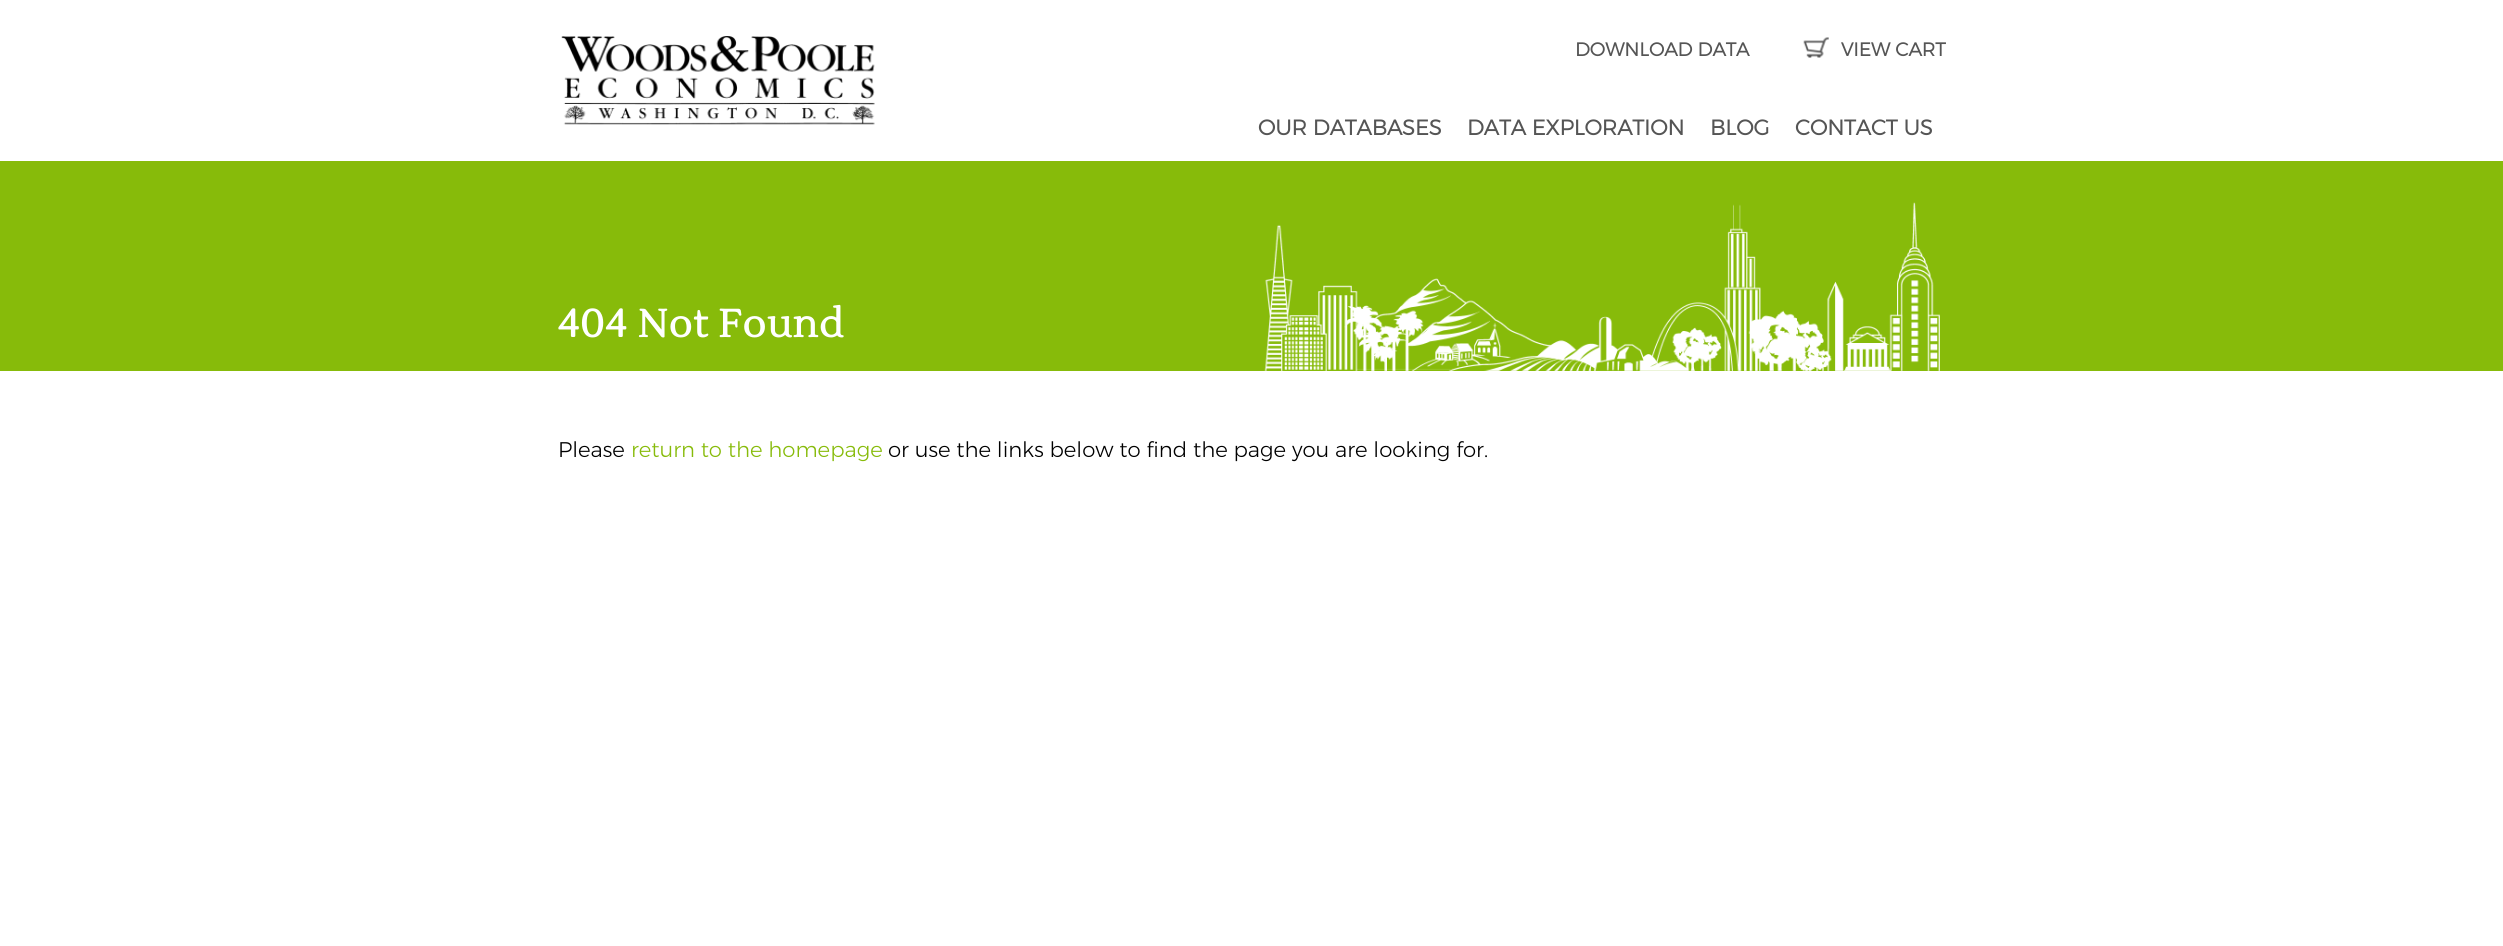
#include <cairo.h>
#include <math.h>
#include <stddef.h>

static cairo_t *ctx;

static void use_color(int r, int g, int b) {
    cairo_set_source_rgb(ctx, r / 255.0, g / 255.0, b / 255.0);
}

static void spaced_text(double x, double y, const char *s, double letter, double word) {
    cairo_move_to(ctx, x, y);
    while (*s) {
        char ch[5] = {0};
        int n = 0;
        do ch[n++] = *s++; while ((*s & 0xC0) == 0x80);
        cairo_show_text(ctx, ch);
        cairo_rel_move_to(ctx, letter + word * (*ch == ' '), 0);
    }
}

static void picture(const char *path, double x, double y, double w, double h) {
    cairo_surface_t *image = cairo_image_surface_create_from_png(path);
    cairo_save(ctx);
    cairo_set_source_surface(ctx, image, x, y);
    cairo_rectangle(ctx, x, y, w, h);
    cairo_fill(ctx);
    cairo_restore(ctx);
    cairo_surface_destroy(image);
}

int main(void) {
    cairo_surface_t *surface = cairo_image_surface_create(CAIRO_FORMAT_RGB24, 2503, 946);
    ctx = cairo_create(surface);
    cairo_font_options_t *options = cairo_font_options_create();
    cairo_font_options_set_hint_metrics(options, CAIRO_HINT_METRICS_OFF);
    cairo_font_options_set_hint_style(options, CAIRO_HINT_STYLE_NONE);
    cairo_set_font_options(ctx, options);
    cairo_set_miter_limit(ctx, 4);
    use_color(135, 187, 10);
    cairo_paint(ctx);
    use_color(255, 255, 255);
    cairo_rectangle(ctx, 0, 0, 2503, 161);
    cairo_fill(ctx);
    picture("img1.png", 561, 36, 314, 89);
    cairo_select_font_face(ctx, "Montserrat", CAIRO_FONT_SLANT_NORMAL, CAIRO_FONT_WEIGHT_BOLD);
    cairo_set_font_size(ctx, 18.75);
    use_color(85, 85, 85);
    cairo_move_to(ctx, 1575, 56);
    cairo_show_text(ctx, "DOWNLOAD DATA");
    picture("img2.png", 1803, 37, 26, 21);
    cairo_move_to(ctx, 1841, 56);
    cairo_show_text(ctx, "VIEW CART");
    cairo_set_font_size(ctx, 21.25);
    cairo_move_to(ctx, 1258, 135);
    cairo_show_text(ctx, "OUR DATABASES");
    cairo_move_to(ctx, 1467, 135);
    cairo_show_text(ctx, "DATA EXPLORATION");
    cairo_move_to(ctx, 1710, 135);
    cairo_show_text(ctx, "BLOG");
    cairo_move_to(ctx, 1795, 135);
    cairo_show_text(ctx, "CONTACT US");
    cairo_select_font_face(ctx, "Lustria", CAIRO_FONT_SLANT_NORMAL, CAIRO_FONT_WEIGHT_BOLD);
    cairo_set_font_size(ctx, 38.75);
    use_color(255, 255, 255);
    spaced_text(558, 337, "404 Not Found", 1.25, 0);
    picture("img3.png", 1264, 202, 676, 169);
    cairo_rectangle(ctx, 0, 371, 2503, 575);
    cairo_fill(ctx);
    cairo_select_font_face(ctx, "Montserrat Light", CAIRO_FONT_SLANT_NORMAL, CAIRO_FONT_WEIGHT_NORMAL);
    cairo_set_font_size(ctx, 21.25);
    use_color(0, 0, 0);
    cairo_move_to(ctx, 558, 457);
    cairo_show_text(ctx, "Please");
    use_color(135, 187, 10);
    cairo_move_to(ctx, 631, 457);
    cairo_show_text(ctx, "return to the homepage");
    use_color(0, 0, 0);
    cairo_move_to(ctx, 888, 457);
    cairo_show_text(ctx, "or use the links below to find the page you are looking for.");
    cairo_surface_write_to_png(surface, "result.png");
    cairo_font_options_destroy(options);
    cairo_destroy(ctx);
    cairo_surface_destroy(surface);
    return 0;
}
